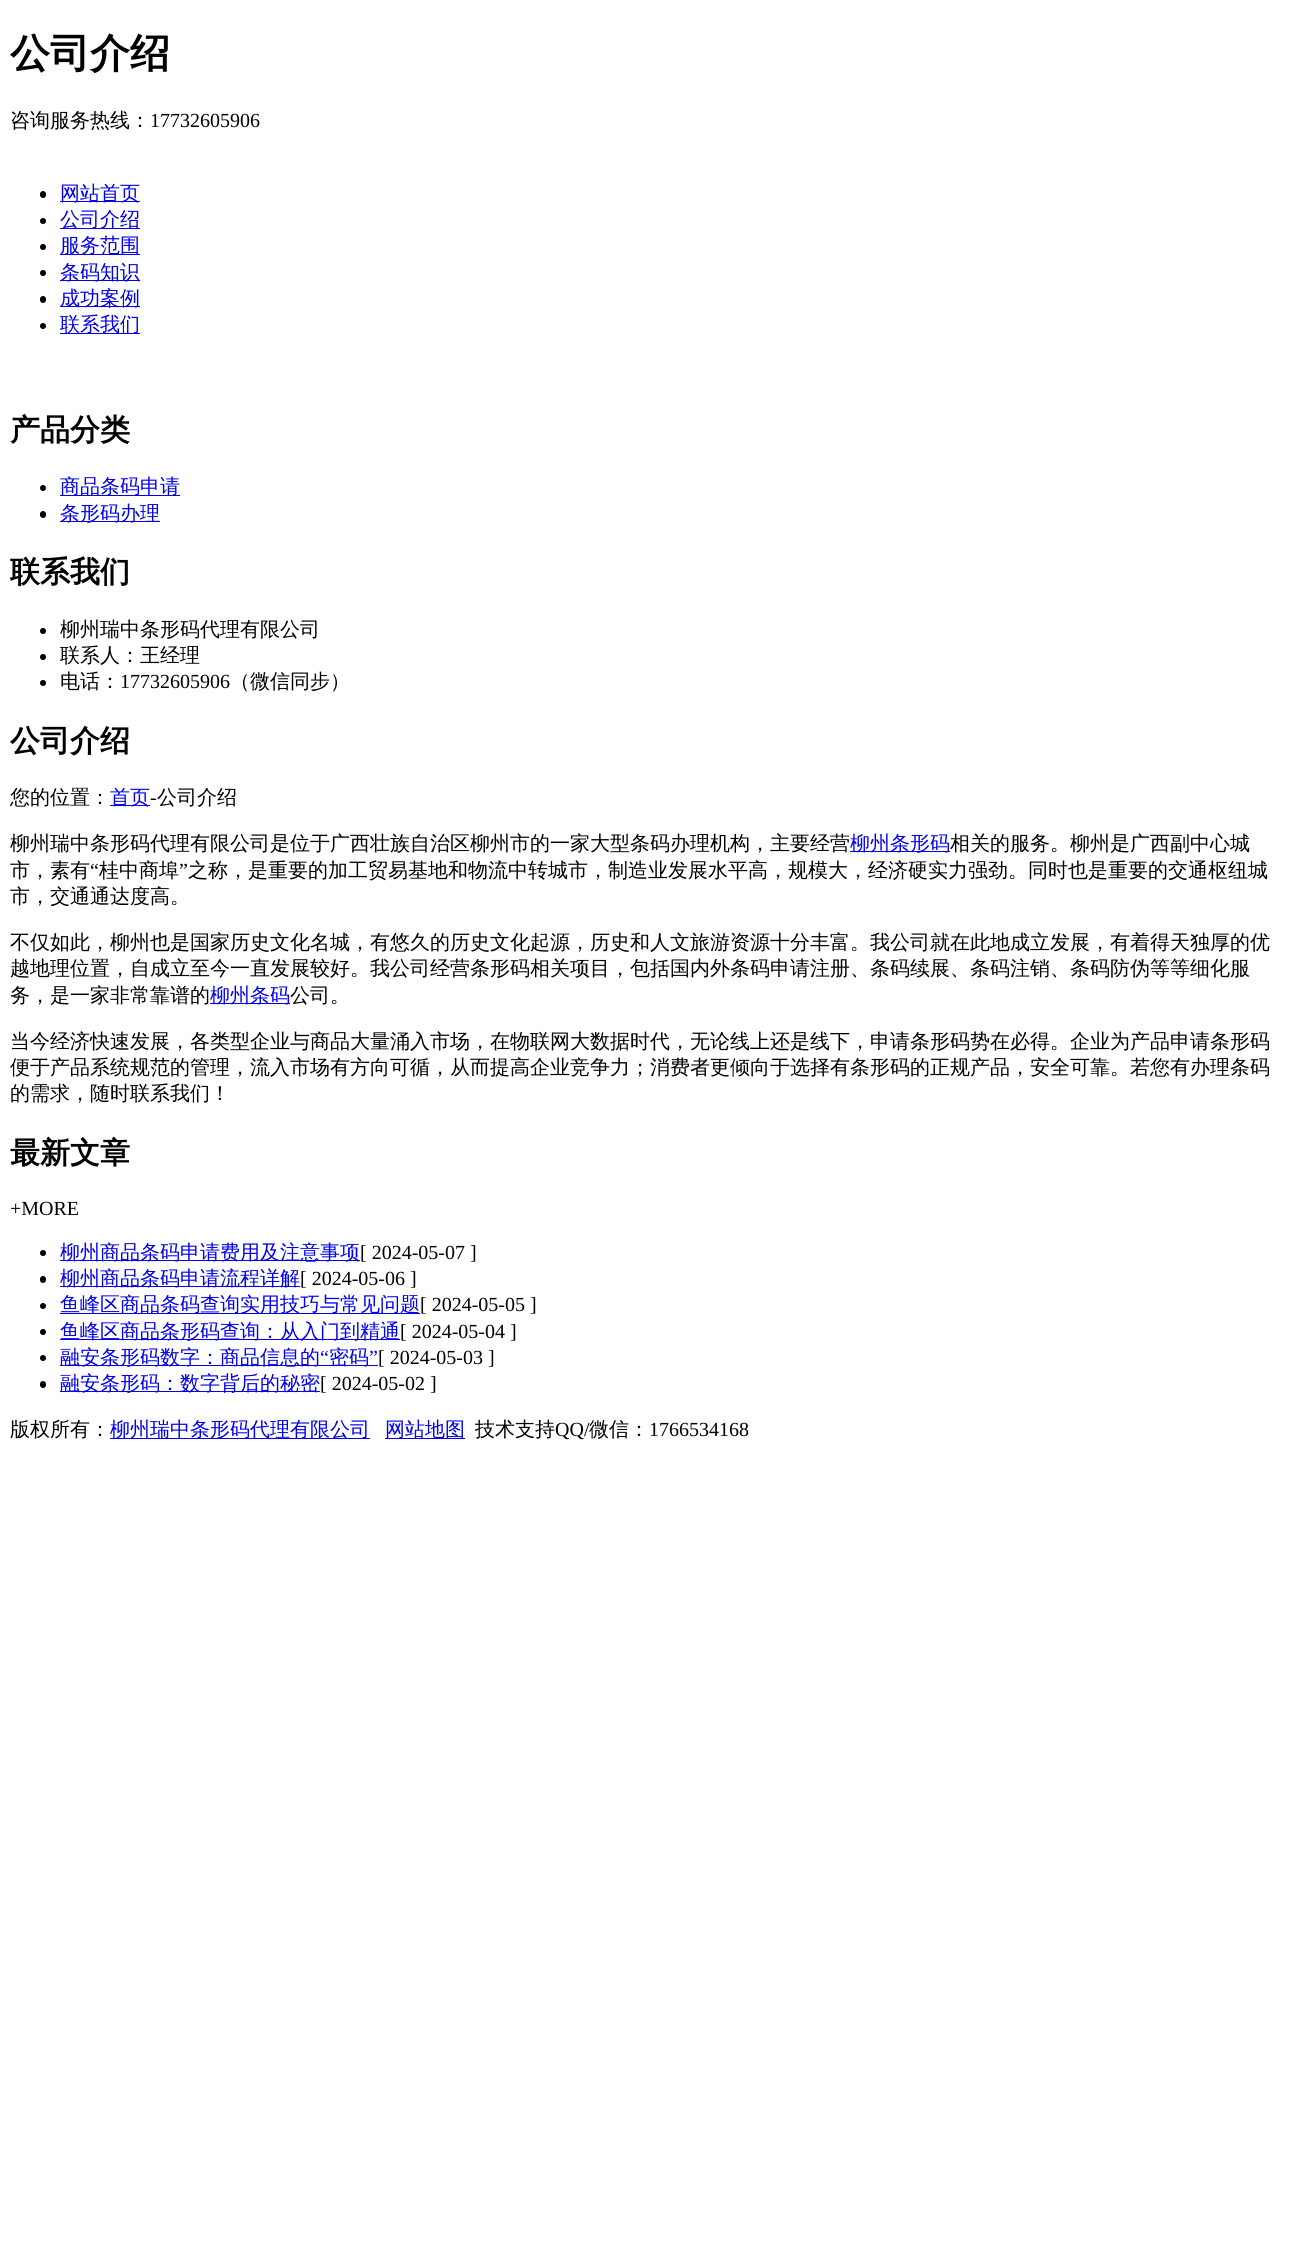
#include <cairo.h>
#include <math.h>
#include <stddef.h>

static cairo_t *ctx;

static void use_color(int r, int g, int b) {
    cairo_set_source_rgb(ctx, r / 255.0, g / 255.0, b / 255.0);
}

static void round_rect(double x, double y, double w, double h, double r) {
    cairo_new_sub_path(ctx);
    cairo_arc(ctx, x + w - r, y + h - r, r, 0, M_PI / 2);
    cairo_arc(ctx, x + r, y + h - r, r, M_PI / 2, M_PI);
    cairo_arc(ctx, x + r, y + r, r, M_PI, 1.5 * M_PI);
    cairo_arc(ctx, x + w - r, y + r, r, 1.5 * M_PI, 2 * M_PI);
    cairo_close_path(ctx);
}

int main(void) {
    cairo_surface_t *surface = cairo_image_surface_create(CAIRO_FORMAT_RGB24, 1294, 2267);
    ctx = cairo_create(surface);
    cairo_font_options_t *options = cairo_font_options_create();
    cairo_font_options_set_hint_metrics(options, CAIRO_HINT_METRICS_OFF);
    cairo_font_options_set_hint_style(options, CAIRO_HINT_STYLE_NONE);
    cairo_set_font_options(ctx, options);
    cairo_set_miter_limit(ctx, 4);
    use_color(255, 255, 255);
    cairo_paint(ctx);
    cairo_select_font_face(ctx, "WenQuanYi Zen Hei", CAIRO_FONT_SLANT_NORMAL, CAIRO_FONT_WEIGHT_BOLD);
    cairo_set_font_size(ctx, 40);
    use_color(0, 0, 0);
    cairo_move_to(ctx, 10, 67);
    cairo_show_text(ctx, "公司介绍");
    cairo_select_font_face(ctx, "WenQuanYi Zen Hei Medium", CAIRO_FONT_SLANT_NORMAL, CAIRO_FONT_WEIGHT_NORMAL);
    cairo_set_font_size(ctx, 20);
    cairo_move_to(ctx, 10, 127);
    cairo_show_text(ctx, "咨询服务热线：");
    cairo_select_font_face(ctx, "Liberation Serif", CAIRO_FONT_SLANT_NORMAL, CAIRO_FONT_WEIGHT_NORMAL);
    cairo_move_to(ctx, 150, 127);
    cairo_show_text(ctx, "17732605906");
    round_rect(40, 191, 6, 7, 3);
    cairo_fill(ctx);
    use_color(0, 0, 238);
    cairo_rectangle(ctx, 60, 201, 80, 1);
    cairo_fill(ctx);
    cairo_select_font_face(ctx, "WenQuanYi Zen Hei Medium", CAIRO_FONT_SLANT_NORMAL, CAIRO_FONT_WEIGHT_NORMAL);
    cairo_move_to(ctx, 60, 200);
    cairo_show_text(ctx, "网站首页");
    use_color(0, 0, 0);
    cairo_new_path(ctx);
    cairo_arc(ctx, 43, 221, 3, 0, 2 * M_PI);
    cairo_fill(ctx);
    use_color(0, 0, 238);
    cairo_rectangle(ctx, 60, 228, 80, 1);
    cairo_fill(ctx);
    cairo_move_to(ctx, 60, 226);
    cairo_show_text(ctx, "公司介绍");
    use_color(0, 0, 0);
    cairo_new_path(ctx);
    cairo_arc(ctx, 43, 247, 3, 0, 2 * M_PI);
    cairo_fill(ctx);
    use_color(0, 0, 238);
    cairo_rectangle(ctx, 60, 254, 80, 1);
    cairo_fill(ctx);
    cairo_move_to(ctx, 60, 252);
    cairo_show_text(ctx, "服务范围");
    use_color(0, 0, 0);
    cairo_new_path(ctx);
    cairo_arc(ctx, 43, 273, 3, 0, 2 * M_PI);
    cairo_fill(ctx);
    use_color(0, 0, 238);
    cairo_rectangle(ctx, 60, 280, 80, 1);
    cairo_fill(ctx);
    cairo_move_to(ctx, 60, 279);
    cairo_show_text(ctx, "条码知识");
    use_color(0, 0, 0);
    round_rect(40, 296, 6, 7, 3);
    cairo_fill(ctx);
    use_color(0, 0, 238);
    cairo_rectangle(ctx, 60, 306, 80, 1);
    cairo_fill(ctx);
    cairo_move_to(ctx, 60, 305);
    cairo_show_text(ctx, "成功案例");
    use_color(0, 0, 0);
    cairo_new_path(ctx);
    cairo_arc(ctx, 43, 326, 3, 0, 2 * M_PI);
    cairo_fill(ctx);
    use_color(0, 0, 238);
    cairo_rectangle(ctx, 60, 333, 80, 1);
    cairo_fill(ctx);
    cairo_move_to(ctx, 60, 331);
    cairo_show_text(ctx, "联系我们");
    cairo_select_font_face(ctx, "WenQuanYi Zen Hei", CAIRO_FONT_SLANT_NORMAL, CAIRO_FONT_WEIGHT_BOLD);
    cairo_set_font_size(ctx, 30);
    use_color(0, 0, 0);
    cairo_move_to(ctx, 10, 440);
    cairo_show_text(ctx, "产品分类");
    cairo_new_path(ctx);
    cairo_arc(ctx, 43, 488, 3, 0, 2 * M_PI);
    cairo_fill(ctx);
    use_color(0, 0, 238);
    cairo_rectangle(ctx, 60, 495, 120, 1);
    cairo_fill(ctx);
    cairo_select_font_face(ctx, "WenQuanYi Zen Hei Medium", CAIRO_FONT_SLANT_NORMAL, CAIRO_FONT_WEIGHT_NORMAL);
    cairo_set_font_size(ctx, 20);
    cairo_move_to(ctx, 60, 493);
    cairo_show_text(ctx, "商品条码申请");
    use_color(0, 0, 0);
    round_rect(40, 511, 6, 7, 3);
    cairo_fill(ctx);
    use_color(0, 0, 238);
    cairo_rectangle(ctx, 60, 521, 100, 1);
    cairo_fill(ctx);
    cairo_move_to(ctx, 60, 520);
    cairo_show_text(ctx, "条形码办理");
    cairo_select_font_face(ctx, "WenQuanYi Zen Hei", CAIRO_FONT_SLANT_NORMAL, CAIRO_FONT_WEIGHT_BOLD);
    cairo_set_font_size(ctx, 30);
    use_color(0, 0, 0);
    cairo_move_to(ctx, 10, 582);
    cairo_show_text(ctx, "联系我们");
    cairo_new_path(ctx);
    cairo_arc(ctx, 43, 631, 3, 0, 2 * M_PI);
    cairo_fill(ctx);
    cairo_select_font_face(ctx, "WenQuanYi Zen Hei Medium", CAIRO_FONT_SLANT_NORMAL, CAIRO_FONT_WEIGHT_NORMAL);
    cairo_set_font_size(ctx, 20);
    cairo_move_to(ctx, 60, 636);
    cairo_show_text(ctx, "柳州瑞中条形码代理有限公司");
    cairo_new_path(ctx);
    cairo_arc(ctx, 43, 657, 3, 0, 2 * M_PI);
    cairo_fill(ctx);
    cairo_move_to(ctx, 60, 662);
    cairo_show_text(ctx, "联系人：王经理");
    cairo_new_path(ctx);
    cairo_arc(ctx, 43, 683, 3, 0, 2 * M_PI);
    cairo_fill(ctx);
    cairo_move_to(ctx, 60, 688);
    cairo_show_text(ctx, "电话：");
    cairo_select_font_face(ctx, "Liberation Serif", CAIRO_FONT_SLANT_NORMAL, CAIRO_FONT_WEIGHT_NORMAL);
    cairo_move_to(ctx, 120, 688);
    cairo_show_text(ctx, "17732605906");
    cairo_select_font_face(ctx, "WenQuanYi Zen Hei Medium", CAIRO_FONT_SLANT_NORMAL, CAIRO_FONT_WEIGHT_NORMAL);
    cairo_move_to(ctx, 230, 688);
    cairo_show_text(ctx, "（微信同步）");
    cairo_select_font_face(ctx, "WenQuanYi Zen Hei", CAIRO_FONT_SLANT_NORMAL, CAIRO_FONT_WEIGHT_BOLD);
    cairo_set_font_size(ctx, 30);
    cairo_move_to(ctx, 10, 751);
    cairo_show_text(ctx, "公司介绍");
    cairo_select_font_face(ctx, "WenQuanYi Zen Hei Medium", CAIRO_FONT_SLANT_NORMAL, CAIRO_FONT_WEIGHT_NORMAL);
    cairo_set_font_size(ctx, 20);
    cairo_move_to(ctx, 10, 804);
    cairo_show_text(ctx, "您的位置：");
    use_color(0, 0, 238);
    cairo_rectangle(ctx, 110, 805, 40, 1);
    cairo_fill(ctx);
    cairo_move_to(ctx, 110, 804);
    cairo_show_text(ctx, "首页");
    cairo_select_font_face(ctx, "Liberation Serif", CAIRO_FONT_SLANT_NORMAL, CAIRO_FONT_WEIGHT_NORMAL);
    use_color(0, 0, 0);
    cairo_move_to(ctx, 150, 804);
    cairo_show_text(ctx, "-");
    cairo_select_font_face(ctx, "WenQuanYi Zen Hei Medium", CAIRO_FONT_SLANT_NORMAL, CAIRO_FONT_WEIGHT_NORMAL);
    cairo_move_to(ctx, 157, 804);
    cairo_show_text(ctx, "公司介绍");
    cairo_move_to(ctx, 10, 850);
    cairo_show_text(ctx, "柳州瑞中条形码代理有限公司是位于广西壮族自治区柳州市的一家大型条码办理机构，主要经营");
    use_color(0, 0, 238);
    cairo_rectangle(ctx, 850, 851, 100, 1);
    cairo_fill(ctx);
    cairo_move_to(ctx, 850, 850);
    cairo_show_text(ctx, "柳州条形码");
    use_color(0, 0, 0);
    cairo_move_to(ctx, 950, 850);
    cairo_show_text(ctx, "相关的服务。柳州是广西副中心城");
    cairo_move_to(ctx, 10, 877);
    cairo_show_text(ctx, "市，素有");
    cairo_select_font_face(ctx, "Liberation Serif", CAIRO_FONT_SLANT_NORMAL, CAIRO_FONT_WEIGHT_NORMAL);
    cairo_move_to(ctx, 90, 877);
    cairo_show_text(ctx, "“");
    cairo_select_font_face(ctx, "WenQuanYi Zen Hei Medium", CAIRO_FONT_SLANT_NORMAL, CAIRO_FONT_WEIGHT_NORMAL);
    cairo_move_to(ctx, 99, 877);
    cairo_show_text(ctx, "桂中商埠");
    cairo_select_font_face(ctx, "Liberation Serif", CAIRO_FONT_SLANT_NORMAL, CAIRO_FONT_WEIGHT_NORMAL);
    cairo_move_to(ctx, 179, 877);
    cairo_show_text(ctx, "”");
    cairo_select_font_face(ctx, "WenQuanYi Zen Hei Medium", CAIRO_FONT_SLANT_NORMAL, CAIRO_FONT_WEIGHT_NORMAL);
    cairo_move_to(ctx, 188, 877);
    cairo_show_text(ctx, "之称，是重要的加工贸易基地和物流中转城市，制造业发展水平高，规模大，经济硬实力强劲。同时也是重要的交通枢纽城");
    cairo_move_to(ctx, 10, 903);
    cairo_show_text(ctx, "市，交通通达度高。");
    cairo_move_to(ctx, 10, 949);
    cairo_show_text(ctx, "不仅如此，柳州也是国家历史文化名城，有悠久的历史文化起源，历史和人文旅游资源十分丰富。我公司就在此地成立发展，有着得天独厚的优");
    cairo_move_to(ctx, 10, 975);
    cairo_show_text(ctx, "越地理位置，自成立至今一直发展较好。我公司经营条形码相关项目，包括国内外条码申请注册、条码续展、条码注销、条码防伪等等细化服");
    cairo_move_to(ctx, 10, 1002);
    cairo_show_text(ctx, "务，是一家非常靠谱的");
    use_color(0, 0, 238);
    cairo_rectangle(ctx, 210, 1003, 80, 1);
    cairo_fill(ctx);
    cairo_move_to(ctx, 210, 1002);
    cairo_show_text(ctx, "柳州条码");
    use_color(0, 0, 0);
    cairo_move_to(ctx, 290, 1002);
    cairo_show_text(ctx, "公司。");
    cairo_move_to(ctx, 10, 1048);
    cairo_show_text(ctx, "当今经济快速发展，各类型企业与商品大量涌入市场，在物联网大数据时代，无论线上还是线下，申请条形码势在必得。企业为产品申请条形码");
    cairo_move_to(ctx, 10, 1074);
    cairo_show_text(ctx, "便于产品系统规范的管理，流入市场有方向可循，从而提高企业竞争力；消费者更倾向于选择有条形码的正规产品，安全可靠。若您有办理条码");
    cairo_move_to(ctx, 10, 1100);
    cairo_show_text(ctx, "的需求，随时联系我们！");
    cairo_select_font_face(ctx, "WenQuanYi Zen Hei", CAIRO_FONT_SLANT_NORMAL, CAIRO_FONT_WEIGHT_BOLD);
    cairo_set_font_size(ctx, 30);
    cairo_move_to(ctx, 10, 1163);
    cairo_show_text(ctx, "最新文章");
    cairo_select_font_face(ctx, "Liberation Serif", CAIRO_FONT_SLANT_NORMAL, CAIRO_FONT_WEIGHT_NORMAL);
    cairo_set_font_size(ctx, 20);
    cairo_move_to(ctx, 10, 1215);
    cairo_show_text(ctx, "+MORE");
    cairo_new_path(ctx);
    cairo_arc(ctx, 43, 1253, 3, 0, 2 * M_PI);
    cairo_fill(ctx);
    use_color(0, 0, 238);
    cairo_rectangle(ctx, 60, 1260, 300, 1);
    cairo_fill(ctx);
    cairo_select_font_face(ctx, "WenQuanYi Zen Hei Medium", CAIRO_FONT_SLANT_NORMAL, CAIRO_FONT_WEIGHT_NORMAL);
    cairo_move_to(ctx, 60, 1259);
    cairo_show_text(ctx, "柳州商品条码申请费用及注意事项");
    cairo_select_font_face(ctx, "Liberation Serif", CAIRO_FONT_SLANT_NORMAL, CAIRO_FONT_WEIGHT_NORMAL);
    use_color(0, 0, 0);
    cairo_move_to(ctx, 360, 1259);
    cairo_show_text(ctx, "[ 2024-05-07 ]");
    round_rect(40, 1276, 6, 7, 3);
    cairo_fill(ctx);
    use_color(0, 0, 238);
    cairo_rectangle(ctx, 60, 1286, 240, 1);
    cairo_fill(ctx);
    cairo_select_font_face(ctx, "WenQuanYi Zen Hei Medium", CAIRO_FONT_SLANT_NORMAL, CAIRO_FONT_WEIGHT_NORMAL);
    cairo_move_to(ctx, 60, 1285);
    cairo_show_text(ctx, "柳州商品条码申请流程详解");
    cairo_select_font_face(ctx, "Liberation Serif", CAIRO_FONT_SLANT_NORMAL, CAIRO_FONT_WEIGHT_NORMAL);
    use_color(0, 0, 0);
    cairo_move_to(ctx, 300, 1285);
    cairo_show_text(ctx, "[ 2024-05-06 ]");
    cairo_new_path(ctx);
    cairo_arc(ctx, 43, 1306, 3, 0, 2 * M_PI);
    cairo_fill(ctx);
    use_color(0, 0, 238);
    cairo_rectangle(ctx, 60, 1313, 360, 1);
    cairo_fill(ctx);
    cairo_select_font_face(ctx, "WenQuanYi Zen Hei Medium", CAIRO_FONT_SLANT_NORMAL, CAIRO_FONT_WEIGHT_NORMAL);
    cairo_move_to(ctx, 60, 1311);
    cairo_show_text(ctx, "鱼峰区商品条码查询实用技巧与常见问题");
    cairo_select_font_face(ctx, "Liberation Serif", CAIRO_FONT_SLANT_NORMAL, CAIRO_FONT_WEIGHT_NORMAL);
    use_color(0, 0, 0);
    cairo_move_to(ctx, 420, 1311);
    cairo_show_text(ctx, "[ 2024-05-05 ]");
    cairo_new_path(ctx);
    cairo_arc(ctx, 43, 1332, 3, 0, 2 * M_PI);
    cairo_fill(ctx);
    use_color(0, 0, 238);
    cairo_rectangle(ctx, 60, 1339, 340, 1);
    cairo_fill(ctx);
    cairo_select_font_face(ctx, "WenQuanYi Zen Hei Medium", CAIRO_FONT_SLANT_NORMAL, CAIRO_FONT_WEIGHT_NORMAL);
    cairo_move_to(ctx, 60, 1338);
    cairo_show_text(ctx, "鱼峰区商品条形码查询：从入门到精通");
    cairo_select_font_face(ctx, "Liberation Serif", CAIRO_FONT_SLANT_NORMAL, CAIRO_FONT_WEIGHT_NORMAL);
    use_color(0, 0, 0);
    cairo_move_to(ctx, 400, 1338);
    cairo_show_text(ctx, "[ 2024-05-04 ]");
    cairo_new_path(ctx);
    cairo_arc(ctx, 43, 1358, 3, 0, 2 * M_PI);
    cairo_fill(ctx);
    use_color(0, 0, 238);
    cairo_rectangle(ctx, 60, 1365, 318, 1);
    cairo_fill(ctx);
    cairo_select_font_face(ctx, "WenQuanYi Zen Hei Medium", CAIRO_FONT_SLANT_NORMAL, CAIRO_FONT_WEIGHT_NORMAL);
    cairo_move_to(ctx, 60, 1364);
    cairo_show_text(ctx, "融安条形码数字：商品信息的");
    cairo_select_font_face(ctx, "Liberation Serif", CAIRO_FONT_SLANT_NORMAL, CAIRO_FONT_WEIGHT_NORMAL);
    cairo_move_to(ctx, 320, 1364);
    cairo_show_text(ctx, "“");
    cairo_select_font_face(ctx, "WenQuanYi Zen Hei Medium", CAIRO_FONT_SLANT_NORMAL, CAIRO_FONT_WEIGHT_NORMAL);
    cairo_move_to(ctx, 329, 1364);
    cairo_show_text(ctx, "密码");
    cairo_select_font_face(ctx, "Liberation Serif", CAIRO_FONT_SLANT_NORMAL, CAIRO_FONT_WEIGHT_NORMAL);
    cairo_move_to(ctx, 369, 1364);
    cairo_show_text(ctx, "”");
    use_color(0, 0, 0);
    cairo_move_to(ctx, 378, 1364);
    cairo_show_text(ctx, "[ 2024-05-03 ]");
    round_rect(40, 1381, 6, 7, 3);
    cairo_fill(ctx);
    use_color(0, 0, 238);
    cairo_rectangle(ctx, 60, 1391, 260, 1);
    cairo_fill(ctx);
    cairo_select_font_face(ctx, "WenQuanYi Zen Hei Medium", CAIRO_FONT_SLANT_NORMAL, CAIRO_FONT_WEIGHT_NORMAL);
    cairo_move_to(ctx, 60, 1390);
    cairo_show_text(ctx, "融安条形码：数字背后的秘密");
    cairo_select_font_face(ctx, "Liberation Serif", CAIRO_FONT_SLANT_NORMAL, CAIRO_FONT_WEIGHT_NORMAL);
    use_color(0, 0, 0);
    cairo_move_to(ctx, 320, 1390);
    cairo_show_text(ctx, "[ 2024-05-02 ]");
    cairo_select_font_face(ctx, "WenQuanYi Zen Hei Medium", CAIRO_FONT_SLANT_NORMAL, CAIRO_FONT_WEIGHT_NORMAL);
    cairo_move_to(ctx, 10, 1436);
    cairo_show_text(ctx, "版权所有：");
    use_color(0, 0, 238);
    cairo_rectangle(ctx, 110, 1438, 260, 1);
    cairo_fill(ctx);
    cairo_move_to(ctx, 110, 1436);
    cairo_show_text(ctx, "柳州瑞中条形码代理有限公司");
    cairo_rectangle(ctx, 385, 1438, 80, 1);
    cairo_fill(ctx);
    cairo_move_to(ctx, 385, 1436);
    cairo_show_text(ctx, "网站地图");
    use_color(0, 0, 0);
    cairo_move_to(ctx, 475, 1436);
    cairo_show_text(ctx, "技术支持");
    cairo_select_font_face(ctx, "Liberation Serif", CAIRO_FONT_SLANT_NORMAL, CAIRO_FONT_WEIGHT_NORMAL);
    cairo_move_to(ctx, 555, 1436);
    cairo_show_text(ctx, "QQ/");
    cairo_select_font_face(ctx, "WenQuanYi Zen Hei Medium", CAIRO_FONT_SLANT_NORMAL, CAIRO_FONT_WEIGHT_NORMAL);
    cairo_move_to(ctx, 589, 1436);
    cairo_show_text(ctx, "微信：");
    cairo_select_font_face(ctx, "Liberation Serif", CAIRO_FONT_SLANT_NORMAL, CAIRO_FONT_WEIGHT_NORMAL);
    cairo_move_to(ctx, 649, 1436);
    cairo_show_text(ctx, "1766534168");
    cairo_surface_write_to_png(surface, "result.png");
    cairo_font_options_destroy(options);
    cairo_destroy(ctx);
    cairo_surface_destroy(surface);
    return 0;
}
